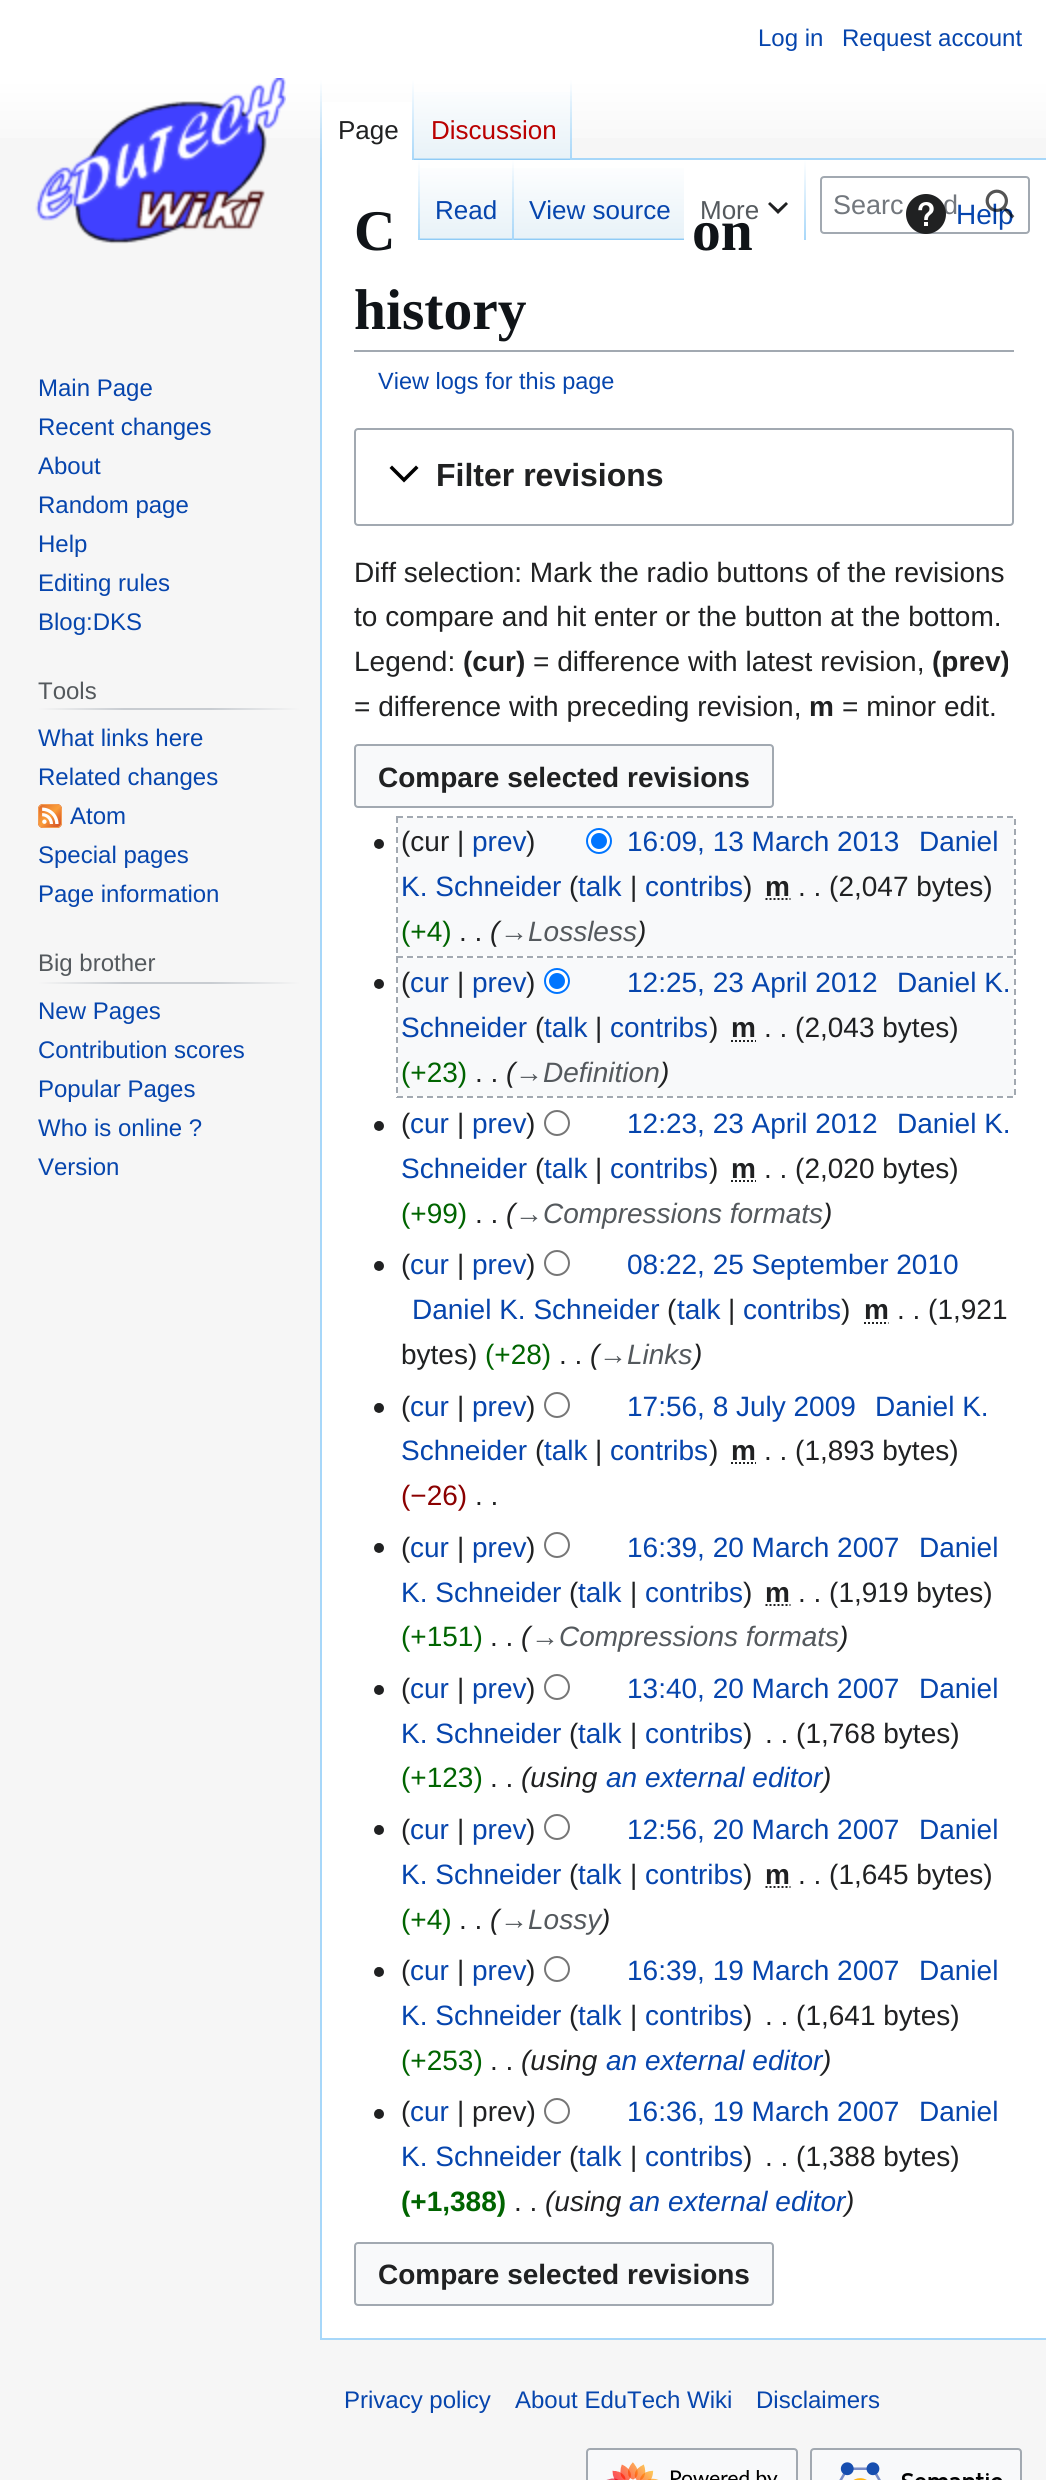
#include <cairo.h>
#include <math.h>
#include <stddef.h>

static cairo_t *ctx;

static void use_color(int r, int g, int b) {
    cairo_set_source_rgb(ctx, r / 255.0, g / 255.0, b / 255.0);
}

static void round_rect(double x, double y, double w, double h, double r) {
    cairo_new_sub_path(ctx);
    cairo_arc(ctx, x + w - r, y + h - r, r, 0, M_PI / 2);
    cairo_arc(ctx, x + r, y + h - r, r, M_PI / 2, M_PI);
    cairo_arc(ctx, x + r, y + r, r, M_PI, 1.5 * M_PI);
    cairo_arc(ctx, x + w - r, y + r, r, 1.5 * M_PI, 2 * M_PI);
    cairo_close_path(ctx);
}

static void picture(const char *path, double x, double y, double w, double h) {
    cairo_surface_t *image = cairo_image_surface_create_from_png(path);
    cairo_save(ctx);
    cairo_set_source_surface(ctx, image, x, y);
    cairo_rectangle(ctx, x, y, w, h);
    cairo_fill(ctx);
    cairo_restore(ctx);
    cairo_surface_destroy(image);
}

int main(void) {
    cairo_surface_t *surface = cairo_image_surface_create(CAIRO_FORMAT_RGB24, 1046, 2480);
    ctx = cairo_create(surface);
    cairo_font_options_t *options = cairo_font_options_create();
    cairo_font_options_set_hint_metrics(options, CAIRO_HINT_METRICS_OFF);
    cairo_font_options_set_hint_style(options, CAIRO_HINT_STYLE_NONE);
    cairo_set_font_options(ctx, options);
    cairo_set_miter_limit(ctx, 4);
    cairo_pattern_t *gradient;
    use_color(246, 246, 246);
    cairo_paint(ctx);
    gradient = cairo_pattern_create_linear(523, 0, 523, 160);
    cairo_pattern_add_color_stop_rgba(gradient, 0.5, 1, 1, 1, 1);
    cairo_pattern_add_color_stop_rgba(gradient, 1, 0.965, 0.965, 0.965, 1);
    cairo_set_source(ctx, gradient);
    cairo_pattern_destroy(gradient);
    cairo_rectangle(ctx, 0, 0, 1046, 138);
    cairo_fill(ctx);
    cairo_select_font_face(ctx, "Liberation Sans", CAIRO_FONT_SLANT_NORMAL, CAIRO_FONT_WEIGHT_NORMAL);
    cairo_set_font_size(ctx, 24);
    use_color(6, 69, 173);
    cairo_move_to(ctx, 758, 46);
    cairo_show_text(ctx, "Log in");
    cairo_move_to(ctx, 842, 46);
    cairo_show_text(ctx, "Request account");
    use_color(167, 215, 249);
    cairo_rectangle(ctx, 320, 2338, 726, 2);
    cairo_fill(ctx);
    cairo_rectangle(ctx, 320, 158, 2, 2182);
    cairo_fill(ctx);
    gradient = cairo_pattern_create_linear(321, 80, 321, 160);
    cairo_pattern_add_color_stop_rgba(gradient, 0, 0.655, 0.843, 0.976, 0);
    cairo_pattern_add_color_stop_rgba(gradient, 1, 0.655, 0.843, 0.976, 1);
    cairo_set_source(ctx, gradient);
    cairo_pattern_destroy(gradient);
    cairo_rectangle(ctx, 320, 80, 2, 80);
    cairo_fill(ctx);
    use_color(255, 255, 255);
    cairo_rectangle(ctx, 322, 102, 90, 58);
    cairo_fill(ctx);
    gradient = cairo_pattern_create_linear(413, 80, 413, 160);
    cairo_pattern_add_color_stop_rgba(gradient, 0, 1, 1, 1, 1);
    cairo_pattern_add_color_stop_rgba(gradient, 1, 0.655, 0.843, 0.976, 1);
    cairo_set_source(ctx, gradient);
    cairo_pattern_destroy(gradient);
    cairo_rectangle(ctx, 412, 80, 2, 80);
    cairo_fill(ctx);
    cairo_set_font_size(ctx, 26);
    use_color(32, 33, 34);
    cairo_move_to(ctx, 338, 139);
    cairo_show_text(ctx, "Page");
    gradient = cairo_pattern_create_linear(493, 160, 493, 80);
    cairo_pattern_add_color_stop_rgba(gradient, 0, 0.467, 0.757, 0.965, 1);
    cairo_pattern_add_color_stop_rgba(gradient, 0.03, 0.91, 0.949, 0.973, 1);
    cairo_pattern_add_color_stop_rgba(gradient, 1, 1, 1, 1, 1);
    cairo_set_source(ctx, gradient);
    cairo_pattern_destroy(gradient);
    cairo_rectangle(ctx, 414, 92, 158, 68);
    cairo_fill(ctx);
    gradient = cairo_pattern_create_linear(571, 80, 571, 160);
    cairo_pattern_add_color_stop_rgba(gradient, 0, 0.655, 0.843, 0.976, 0);
    cairo_pattern_add_color_stop_rgba(gradient, 1, 0.655, 0.843, 0.976, 1);
    cairo_set_source(ctx, gradient);
    cairo_pattern_destroy(gradient);
    cairo_rectangle(ctx, 570, 80, 2, 80);
    cairo_fill(ctx);
    use_color(186, 0, 0);
    cairo_move_to(ctx, 431, 139);
    cairo_show_text(ctx, "Discussion");
    use_color(255, 255, 255);
    cairo_rectangle(ctx, 322, 160, 724, 2178);
    cairo_fill(ctx);
    gradient = cairo_pattern_create_linear(419, 160, 419, 240);
    cairo_pattern_add_color_stop_rgba(gradient, 0, 0.655, 0.843, 0.976, 0);
    cairo_pattern_add_color_stop_rgba(gradient, 1, 0.655, 0.843, 0.976, 1);
    cairo_set_source(ctx, gradient);
    cairo_pattern_destroy(gradient);
    cairo_rectangle(ctx, 418, 160, 2, 80);
    cairo_fill(ctx);
    gradient = cairo_pattern_create_linear(467, 240, 467, 160);
    cairo_pattern_add_color_stop_rgba(gradient, 0, 0.467, 0.757, 0.965, 1);
    cairo_pattern_add_color_stop_rgba(gradient, 0.03, 0.91, 0.949, 0.973, 1);
    cairo_pattern_add_color_stop_rgba(gradient, 1, 1, 1, 1, 1);
    cairo_set_source(ctx, gradient);
    cairo_pattern_destroy(gradient);
    cairo_rectangle(ctx, 420, 168, 94, 72);
    cairo_fill(ctx);
    gradient = cairo_pattern_create_linear(513, 160, 513, 240);
    cairo_pattern_add_color_stop_rgba(gradient, 0, 0.655, 0.843, 0.976, 0);
    cairo_pattern_add_color_stop_rgba(gradient, 1, 0.655, 0.843, 0.976, 1);
    cairo_set_source(ctx, gradient);
    cairo_pattern_destroy(gradient);
    cairo_rectangle(ctx, 512, 160, 2, 80);
    cairo_fill(ctx);
    use_color(6, 69, 173);
    cairo_move_to(ctx, 435, 219);
    cairo_show_text(ctx, "Read");
    gradient = cairo_pattern_create_linear(599, 240, 599, 160);
    cairo_pattern_add_color_stop_rgba(gradient, 0, 0.467, 0.757, 0.965, 1);
    cairo_pattern_add_color_stop_rgba(gradient, 0.03, 0.91, 0.949, 0.973, 1);
    cairo_pattern_add_color_stop_rgba(gradient, 1, 1, 1, 1, 1);
    cairo_set_source(ctx, gradient);
    cairo_pattern_destroy(gradient);
    cairo_rectangle(ctx, 514, 168, 170, 72);
    cairo_fill(ctx);
    use_color(6, 69, 173);
    cairo_move_to(ctx, 529, 219);
    cairo_show_text(ctx, "View source");
    gradient = cairo_pattern_create_linear(805, 160, 805, 240);
    cairo_pattern_add_color_stop_rgba(gradient, 0, 1, 1, 1, 1);
    cairo_pattern_add_color_stop_rgba(gradient, 1, 0.655, 0.843, 0.976, 1);
    cairo_set_source(ctx, gradient);
    cairo_pattern_destroy(gradient);
    cairo_rectangle(ctx, 804, 160, 2, 80);
    cairo_fill(ctx);
    use_color(84, 89, 93);
    cairo_move_to(ctx, 700, 219);
    cairo_show_text(ctx, "More");
    use_color(32, 33, 34);
    cairo_new_path(ctx);
    cairo_move_to(ctx, 788, 204);
    cairo_line_to(ctx, 786, 202);
    cairo_line_to(ctx, 778, 209.5);
    cairo_line_to(ctx, 770, 202);
    cairo_line_to(ctx, 768, 204);
    cairo_line_to(ctx, 778, 214);
    cairo_close_path(ctx);
    cairo_fill(ctx);
    round_rect(821, 177, 208, 56, 3);
    use_color(162, 169, 177);
    cairo_stroke(ctx);
    cairo_set_font_size(ctx, 27);
    use_color(114, 119, 125);
    cairo_move_to(ctx, 833, 214);
    cairo_show_text(ctx, "Searc");
    cairo_move_to(ctx, 943, 214);
    cairo_show_text(ctx, "d");
    cairo_set_font_size(ctx, 28);
    use_color(6, 69, 173);
    cairo_move_to(ctx, 956, 224);
    cairo_show_text(ctx, "Help");
    picture("img1.png", 985, 189, 30, 30);
    picture("img2.png", 35, 78, 251, 166);
    cairo_set_font_size(ctx, 24);
    cairo_move_to(ctx, 38, 396);
    cairo_show_text(ctx, "Main Page");
    cairo_move_to(ctx, 38, 435);
    cairo_show_text(ctx, "Recent changes");
    cairo_move_to(ctx, 38, 474);
    cairo_show_text(ctx, "About");
    cairo_move_to(ctx, 38, 513);
    cairo_show_text(ctx, "Random page");
    cairo_move_to(ctx, 38, 552);
    cairo_show_text(ctx, "Help");
    cairo_move_to(ctx, 38, 591);
    cairo_show_text(ctx, "Editing rules");
    cairo_move_to(ctx, 38, 630);
    cairo_show_text(ctx, "Blog:DKS");
    gradient = cairo_pattern_create_linear(38, 709, 300, 709);
    cairo_pattern_add_color_stop_rgba(gradient, 0, 0.965, 0.965, 0.965, 1);
    cairo_pattern_add_color_stop_rgba(gradient, 0.33, 0.784, 0.8, 0.82, 1);
    cairo_pattern_add_color_stop_rgba(gradient, 0.66, 0.784, 0.8, 0.82, 1);
    cairo_pattern_add_color_stop_rgba(gradient, 1, 0.965, 0.965, 0.965, 1);
    cairo_set_source(ctx, gradient);
    cairo_pattern_destroy(gradient);
    cairo_rectangle(ctx, 38, 708, 262, 2);
    cairo_fill(ctx);
    use_color(84, 89, 93);
    cairo_move_to(ctx, 38, 699);
    cairo_show_text(ctx, "Tools");
    use_color(6, 69, 173);
    cairo_move_to(ctx, 38, 746);
    cairo_show_text(ctx, "What links here");
    cairo_move_to(ctx, 38, 785);
    cairo_show_text(ctx, "Related changes");
    picture("img3.png", 38, 804, 24, 24);
    cairo_move_to(ctx, 70, 824);
    cairo_show_text(ctx, "Atom");
    cairo_move_to(ctx, 38, 863);
    cairo_show_text(ctx, "Special pages");
    cairo_move_to(ctx, 38, 902);
    cairo_show_text(ctx, "Page information");
    gradient = cairo_pattern_create_linear(38, 983, 300, 983);
    cairo_pattern_add_color_stop_rgba(gradient, 0, 0.965, 0.965, 0.965, 1);
    cairo_pattern_add_color_stop_rgba(gradient, 0.33, 0.784, 0.8, 0.82, 1);
    cairo_pattern_add_color_stop_rgba(gradient, 0.66, 0.784, 0.8, 0.82, 1);
    cairo_pattern_add_color_stop_rgba(gradient, 1, 0.965, 0.965, 0.965, 1);
    cairo_set_source(ctx, gradient);
    cairo_pattern_destroy(gradient);
    cairo_rectangle(ctx, 38, 982, 262, 2);
    cairo_fill(ctx);
    use_color(84, 89, 93);
    cairo_move_to(ctx, 38, 971);
    cairo_show_text(ctx, "Big brother");
    use_color(6, 69, 173);
    cairo_move_to(ctx, 38, 1019);
    cairo_show_text(ctx, "New Pages");
    cairo_move_to(ctx, 38, 1058);
    cairo_show_text(ctx, "Contribution scores");
    cairo_move_to(ctx, 38, 1097);
    cairo_show_text(ctx, "Popular Pages");
    cairo_move_to(ctx, 38, 1136);
    cairo_show_text(ctx, "Who is online ?");
    cairo_move_to(ctx, 38, 1175);
    cairo_show_text(ctx, "Version");
    use_color(167, 215, 249);
    cairo_rectangle(ctx, 572, 158, 474, 2);
    cairo_fill(ctx);
    use_color(162, 169, 177);
    cairo_rectangle(ctx, 354, 350, 660, 2);
    cairo_fill(ctx);
    cairo_select_font_face(ctx, "Liberation Serif", CAIRO_FONT_SLANT_NORMAL, CAIRO_FONT_WEIGHT_BOLD);
    cairo_set_font_size(ctx, 57.5);
    use_color(16, 20, 24);
    cairo_move_to(ctx, 354, 250);
    cairo_show_text(ctx, "C");
    cairo_move_to(ctx, 692, 250);
    cairo_show_text(ctx, "on");
    cairo_move_to(ctx, 354, 329);
    cairo_show_text(ctx, "history");
    picture("img4.png", 906, 194, 40, 40);
    cairo_select_font_face(ctx, "Liberation Sans", CAIRO_FONT_SLANT_NORMAL, CAIRO_FONT_WEIGHT_NORMAL);
    cairo_set_font_size(ctx, 23.5);
    use_color(6, 69, 173);
    cairo_move_to(ctx, 378, 389);
    cairo_show_text(ctx, "View logs for this page");
    round_rect(355, 429, 658, 96, 3);
    use_color(162, 169, 177);
    cairo_stroke(ctx);
    use_color(0, 0, 0);
    cairo_new_path(ctx);
    cairo_move_to(ctx, 416, 465.5);
    cairo_line_to(ctx, 404, 477.5);
    cairo_line_to(ctx, 392, 465.5);
    cairo_line_to(ctx, 389.5, 468);
    cairo_line_to(ctx, 404, 482.5);
    cairo_line_to(ctx, 418.5, 468);
    cairo_close_path(ctx);
    cairo_fill(ctx);
    cairo_select_font_face(ctx, "Liberation Sans", CAIRO_FONT_SLANT_NORMAL, CAIRO_FONT_WEIGHT_BOLD);
    cairo_set_font_size(ctx, 32);
    use_color(32, 33, 34);
    cairo_move_to(ctx, 436, 486);
    cairo_show_text(ctx, "Filter revisions");
    cairo_select_font_face(ctx, "Liberation Sans", CAIRO_FONT_SLANT_NORMAL, CAIRO_FONT_WEIGHT_NORMAL);
    cairo_set_font_size(ctx, 28);
    cairo_move_to(ctx, 354, 582);
    cairo_show_text(ctx, "Diff selection: Mark the radio buttons of the revisions");
    cairo_move_to(ctx, 354, 626);
    cairo_show_text(ctx, "to compare and hit enter or the button at the bottom.");
    cairo_move_to(ctx, 354, 671);
    cairo_show_text(ctx, "Legend:");
    cairo_select_font_face(ctx, "Liberation Sans", CAIRO_FONT_SLANT_NORMAL, CAIRO_FONT_WEIGHT_BOLD);
    cairo_move_to(ctx, 463, 671);
    cairo_show_text(ctx, "(cur)");
    cairo_select_font_face(ctx, "Liberation Sans", CAIRO_FONT_SLANT_NORMAL, CAIRO_FONT_WEIGHT_NORMAL);
    cairo_move_to(ctx, 533, 671);
    cairo_show_text(ctx, "= difference with latest revision,");
    cairo_select_font_face(ctx, "Liberation Sans", CAIRO_FONT_SLANT_NORMAL, CAIRO_FONT_WEIGHT_BOLD);
    cairo_move_to(ctx, 932, 671);
    cairo_show_text(ctx, "(prev)");
    cairo_select_font_face(ctx, "Liberation Sans", CAIRO_FONT_SLANT_NORMAL, CAIRO_FONT_WEIGHT_NORMAL);
    cairo_move_to(ctx, 354, 716);
    cairo_show_text(ctx, "= difference with preceding revision,");
    cairo_select_font_face(ctx, "Liberation Sans", CAIRO_FONT_SLANT_NORMAL, CAIRO_FONT_WEIGHT_BOLD);
    cairo_move_to(ctx, 809, 716);
    cairo_show_text(ctx, "m");
    cairo_select_font_face(ctx, "Liberation Sans", CAIRO_FONT_SLANT_NORMAL, CAIRO_FONT_WEIGHT_NORMAL);
    cairo_move_to(ctx, 842, 716);
    cairo_show_text(ctx, "= minor edit.");
    use_color(248, 249, 250);
    round_rect(355, 745, 418, 62, 3);
    cairo_fill_preserve(ctx);
    use_color(162, 169, 177);
    cairo_stroke(ctx);
    cairo_select_font_face(ctx, "Liberation Sans", CAIRO_FONT_SLANT_NORMAL, CAIRO_FONT_WEIGHT_BOLD);
    use_color(32, 33, 34);
    cairo_move_to(ctx, 378, 787);
    cairo_show_text(ctx, "Compare selected revisions");
    use_color(248, 249, 250);
    cairo_rectangle(ctx, 398, 818, 616, 138);
    cairo_fill(ctx);
    picture("img5.png", 374, 839, 10, 10);
    cairo_select_font_face(ctx, "Liberation Sans", CAIRO_FONT_SLANT_NORMAL, CAIRO_FONT_WEIGHT_NORMAL);
    use_color(32, 33, 34);
    cairo_move_to(ctx, 401, 851);
    cairo_show_text(ctx, "(cur |");
    use_color(6, 69, 173);
    cairo_move_to(ctx, 472, 851);
    cairo_show_text(ctx, "prev");
    use_color(32, 33, 34);
    cairo_move_to(ctx, 526, 851);
    cairo_show_text(ctx, ")");
    use_color(255, 255, 255);
    cairo_new_path(ctx);
    cairo_arc(ctx, 599, 841, 12, 0, 2 * M_PI);
    cairo_fill_preserve(ctx);
    use_color(0, 117, 255);
    cairo_stroke(ctx);
    cairo_arc(ctx, 599, 841, 8, 0, 2 * M_PI);
    cairo_fill(ctx);
    use_color(6, 69, 173);
    cairo_move_to(ctx, 919, 851);
    cairo_show_text(ctx, "Daniel");
    cairo_move_to(ctx, 401, 896);
    cairo_show_text(ctx, "K. Schneider");
    use_color(32, 33, 34);
    cairo_move_to(ctx, 569, 896);
    cairo_show_text(ctx, "(");
    use_color(6, 69, 173);
    cairo_move_to(ctx, 578, 896);
    cairo_show_text(ctx, "talk");
    use_color(32, 33, 34);
    cairo_move_to(ctx, 630, 896);
    cairo_show_text(ctx, "|");
    use_color(6, 69, 173);
    cairo_move_to(ctx, 645, 896);
    cairo_show_text(ctx, "contribs");
    use_color(32, 33, 34);
    cairo_move_to(ctx, 743, 896);
    cairo_show_text(ctx, ")");
    use_color(6, 69, 173);
    cairo_move_to(ctx, 627, 851);
    cairo_show_text(ctx, "16:09, 13 March 2013");
    cairo_select_font_face(ctx, "Liberation Sans", CAIRO_FONT_SLANT_NORMAL, CAIRO_FONT_WEIGHT_BOLD);
    use_color(32, 33, 34);
    cairo_move_to(ctx, 765, 896);
    cairo_show_text(ctx, "m");
    cairo_new_path(ctx);
    cairo_move_to(ctx, 765.5, 899);
    cairo_line_to(ctx, 790.5, 899);
    cairo_set_dash(ctx, (double[]){2, 2}, 2, 0);
    cairo_stroke(ctx);
    cairo_select_font_face(ctx, "Liberation Sans", CAIRO_FONT_SLANT_NORMAL, CAIRO_FONT_WEIGHT_NORMAL);
    cairo_move_to(ctx, 798, 896);
    cairo_show_text(ctx, ". . (2,047 bytes)");
    use_color(0, 100, 0);
    cairo_move_to(ctx, 401, 941);
    cairo_show_text(ctx, "(+4)");
    use_color(32, 33, 34);
    cairo_move_to(ctx, 459, 941);
    cairo_show_text(ctx, ". .");
    cairo_select_font_face(ctx, "Liberation Sans", CAIRO_FONT_SLANT_ITALIC, CAIRO_FONT_WEIGHT_NORMAL);
    cairo_move_to(ctx, 490, 941);
    cairo_show_text(ctx, "(");
    use_color(84, 89, 93);
    cairo_move_to(ctx, 500, 941);
    cairo_show_text(ctx, "→Lossless");
    use_color(32, 33, 34);
    cairo_move_to(ctx, 637, 941);
    cairo_show_text(ctx, ")");
    cairo_new_path(ctx);
    cairo_move_to(ctx, 397, 817);
    cairo_line_to(ctx, 1015, 817);
    cairo_line_to(ctx, 1015, 957);
    cairo_line_to(ctx, 397, 957);
    cairo_close_path(ctx);
    use_color(162, 169, 177);
    cairo_set_dash(ctx, (double[]){6, 4}, 2, 0);
    cairo_stroke(ctx);
    use_color(248, 249, 250);
    cairo_rectangle(ctx, 398, 958, 616, 138);
    cairo_fill(ctx);
    picture("img5.png", 374, 979, 10, 10);
    cairo_select_font_face(ctx, "Liberation Sans", CAIRO_FONT_SLANT_NORMAL, CAIRO_FONT_WEIGHT_NORMAL);
    use_color(32, 33, 34);
    cairo_move_to(ctx, 401, 992);
    cairo_show_text(ctx, "(");
    use_color(6, 69, 173);
    cairo_move_to(ctx, 410, 992);
    cairo_show_text(ctx, "cur");
    use_color(32, 33, 34);
    cairo_move_to(ctx, 457, 992);
    cairo_show_text(ctx, "|");
    use_color(6, 69, 173);
    cairo_move_to(ctx, 472, 992);
    cairo_show_text(ctx, "prev");
    use_color(32, 33, 34);
    cairo_move_to(ctx, 526, 992);
    cairo_show_text(ctx, ")");
    use_color(255, 255, 255);
    cairo_new_path(ctx);
    cairo_arc(ctx, 557, 981, 12, 0, 2 * M_PI);
    cairo_fill_preserve(ctx);
    use_color(0, 117, 255);
    cairo_set_dash(ctx, NULL, 0, 0);
    cairo_stroke(ctx);
    cairo_arc(ctx, 557, 981, 8, 0, 2 * M_PI);
    cairo_fill(ctx);
    use_color(6, 69, 173);
    cairo_move_to(ctx, 897, 992);
    cairo_show_text(ctx, "Daniel K.");
    cairo_move_to(ctx, 401, 1037);
    cairo_show_text(ctx, "Schneider");
    use_color(32, 33, 34);
    cairo_move_to(ctx, 535, 1037);
    cairo_show_text(ctx, "(");
    use_color(6, 69, 173);
    cairo_move_to(ctx, 544, 1037);
    cairo_show_text(ctx, "talk");
    use_color(32, 33, 34);
    cairo_move_to(ctx, 595, 1037);
    cairo_show_text(ctx, "|");
    use_color(6, 69, 173);
    cairo_move_to(ctx, 610, 1037);
    cairo_show_text(ctx, "contribs");
    use_color(32, 33, 34);
    cairo_move_to(ctx, 709, 1037);
    cairo_show_text(ctx, ")");
    use_color(6, 69, 173);
    cairo_move_to(ctx, 627, 992);
    cairo_show_text(ctx, "12:25, 23 April 2012");
    cairo_select_font_face(ctx, "Liberation Sans", CAIRO_FONT_SLANT_NORMAL, CAIRO_FONT_WEIGHT_BOLD);
    use_color(32, 33, 34);
    cairo_move_to(ctx, 731, 1037);
    cairo_show_text(ctx, "m");
    cairo_new_path(ctx);
    cairo_move_to(ctx, 731, 1041);
    cairo_line_to(ctx, 756, 1041);
    cairo_set_dash(ctx, (double[]){2, 2}, 2, 0);
    cairo_stroke(ctx);
    cairo_select_font_face(ctx, "Liberation Sans", CAIRO_FONT_SLANT_NORMAL, CAIRO_FONT_WEIGHT_NORMAL);
    cairo_move_to(ctx, 764, 1037);
    cairo_show_text(ctx, ". . (2,043 bytes)");
    use_color(0, 100, 0);
    cairo_move_to(ctx, 401, 1082);
    cairo_show_text(ctx, "(+23)");
    use_color(32, 33, 34);
    cairo_move_to(ctx, 475, 1082);
    cairo_show_text(ctx, ". .");
    cairo_select_font_face(ctx, "Liberation Sans", CAIRO_FONT_SLANT_ITALIC, CAIRO_FONT_WEIGHT_NORMAL);
    cairo_move_to(ctx, 506, 1082);
    cairo_show_text(ctx, "(");
    use_color(84, 89, 93);
    cairo_move_to(ctx, 515, 1082);
    cairo_show_text(ctx, "→Definition");
    use_color(32, 33, 34);
    cairo_move_to(ctx, 660, 1082);
    cairo_show_text(ctx, ")");
    cairo_new_path(ctx);
    cairo_move_to(ctx, 397, 957);
    cairo_line_to(ctx, 1015, 957);
    cairo_line_to(ctx, 1015, 1097);
    cairo_line_to(ctx, 397, 1097);
    cairo_close_path(ctx);
    use_color(162, 169, 177);
    cairo_set_dash(ctx, (double[]){6, 4}, 2, 0);
    cairo_stroke(ctx);
    picture("img5.png", 374, 1121, 10, 10);
    cairo_select_font_face(ctx, "Liberation Sans", CAIRO_FONT_SLANT_NORMAL, CAIRO_FONT_WEIGHT_NORMAL);
    use_color(32, 33, 34);
    cairo_move_to(ctx, 401, 1133);
    cairo_show_text(ctx, "(");
    use_color(6, 69, 173);
    cairo_move_to(ctx, 410, 1133);
    cairo_show_text(ctx, "cur");
    use_color(32, 33, 34);
    cairo_move_to(ctx, 457, 1133);
    cairo_show_text(ctx, "|");
    use_color(6, 69, 173);
    cairo_move_to(ctx, 472, 1133);
    cairo_show_text(ctx, "prev");
    use_color(32, 33, 34);
    cairo_move_to(ctx, 526, 1133);
    cairo_show_text(ctx, ")");
    cairo_new_path(ctx);
    cairo_arc(ctx, 557, 1123, 12, 0, 2 * M_PI);
    use_color(118, 118, 118);
    cairo_set_dash(ctx, NULL, 0, 0);
    cairo_stroke(ctx);
    use_color(6, 69, 173);
    cairo_move_to(ctx, 897, 1133);
    cairo_show_text(ctx, "Daniel K.");
    cairo_move_to(ctx, 401, 1178);
    cairo_show_text(ctx, "Schneider");
    use_color(32, 33, 34);
    cairo_move_to(ctx, 535, 1178);
    cairo_show_text(ctx, "(");
    use_color(6, 69, 173);
    cairo_move_to(ctx, 544, 1178);
    cairo_show_text(ctx, "talk");
    use_color(32, 33, 34);
    cairo_move_to(ctx, 595, 1178);
    cairo_show_text(ctx, "|");
    use_color(6, 69, 173);
    cairo_move_to(ctx, 610, 1178);
    cairo_show_text(ctx, "contribs");
    use_color(32, 33, 34);
    cairo_move_to(ctx, 709, 1178);
    cairo_show_text(ctx, ")");
    use_color(6, 69, 173);
    cairo_move_to(ctx, 627, 1133);
    cairo_show_text(ctx, "12:23, 23 April 2012");
    cairo_select_font_face(ctx, "Liberation Sans", CAIRO_FONT_SLANT_NORMAL, CAIRO_FONT_WEIGHT_BOLD);
    use_color(32, 33, 34);
    cairo_move_to(ctx, 731, 1178);
    cairo_show_text(ctx, "m");
    cairo_new_path(ctx);
    cairo_move_to(ctx, 731, 1181);
    cairo_line_to(ctx, 756, 1181);
    cairo_set_dash(ctx, (double[]){2, 2}, 2, 0);
    cairo_stroke(ctx);
    cairo_select_font_face(ctx, "Liberation Sans", CAIRO_FONT_SLANT_NORMAL, CAIRO_FONT_WEIGHT_NORMAL);
    cairo_move_to(ctx, 764, 1178);
    cairo_show_text(ctx, ". . (2,020 bytes)");
    use_color(0, 100, 0);
    cairo_move_to(ctx, 401, 1223);
    cairo_show_text(ctx, "(+99)");
    use_color(32, 33, 34);
    cairo_move_to(ctx, 475, 1223);
    cairo_show_text(ctx, ". .");
    cairo_select_font_face(ctx, "Liberation Sans", CAIRO_FONT_SLANT_ITALIC, CAIRO_FONT_WEIGHT_NORMAL);
    cairo_move_to(ctx, 506, 1223);
    cairo_show_text(ctx, "(");
    use_color(84, 89, 93);
    cairo_move_to(ctx, 515, 1223);
    cairo_show_text(ctx, "→Compressions formats");
    use_color(32, 33, 34);
    cairo_move_to(ctx, 823, 1223);
    cairo_show_text(ctx, ")");
    picture("img5.png", 374, 1261, 10, 10);
    cairo_select_font_face(ctx, "Liberation Sans", CAIRO_FONT_SLANT_NORMAL, CAIRO_FONT_WEIGHT_NORMAL);
    cairo_move_to(ctx, 401, 1274);
    cairo_show_text(ctx, "(");
    use_color(6, 69, 173);
    cairo_move_to(ctx, 410, 1274);
    cairo_show_text(ctx, "cur");
    use_color(32, 33, 34);
    cairo_move_to(ctx, 457, 1274);
    cairo_show_text(ctx, "|");
    use_color(6, 69, 173);
    cairo_move_to(ctx, 472, 1274);
    cairo_show_text(ctx, "prev");
    use_color(32, 33, 34);
    cairo_move_to(ctx, 526, 1274);
    cairo_show_text(ctx, ")");
    cairo_new_path(ctx);
    cairo_arc(ctx, 557, 1263, 12, 0, 2 * M_PI);
    use_color(118, 118, 118);
    cairo_set_dash(ctx, NULL, 0, 0);
    cairo_stroke(ctx);
    use_color(6, 69, 173);
    cairo_move_to(ctx, 627, 1274);
    cairo_show_text(ctx, "08:22, 25 September 2010");
    cairo_move_to(ctx, 412, 1319);
    cairo_show_text(ctx, "Daniel K. Schneider");
    use_color(32, 33, 34);
    cairo_move_to(ctx, 667, 1319);
    cairo_show_text(ctx, "(");
    use_color(6, 69, 173);
    cairo_move_to(ctx, 677, 1319);
    cairo_show_text(ctx, "talk");
    use_color(32, 33, 34);
    cairo_move_to(ctx, 728, 1319);
    cairo_show_text(ctx, "|");
    use_color(6, 69, 173);
    cairo_move_to(ctx, 743, 1319);
    cairo_show_text(ctx, "contribs");
    use_color(32, 33, 34);
    cairo_move_to(ctx, 841, 1319);
    cairo_show_text(ctx, ")");
    cairo_select_font_face(ctx, "Liberation Sans", CAIRO_FONT_SLANT_NORMAL, CAIRO_FONT_WEIGHT_BOLD);
    cairo_move_to(ctx, 864, 1319);
    cairo_show_text(ctx, "m");
    cairo_new_path(ctx);
    cairo_move_to(ctx, 864, 1323);
    cairo_line_to(ctx, 888.5, 1323);
    cairo_set_dash(ctx, (double[]){2, 2}, 2, 0);
    cairo_stroke(ctx);
    cairo_select_font_face(ctx, "Liberation Sans", CAIRO_FONT_SLANT_NORMAL, CAIRO_FONT_WEIGHT_NORMAL);
    cairo_move_to(ctx, 897, 1319);
    cairo_show_text(ctx, ". . (1,921");
    cairo_move_to(ctx, 401, 1364);
    cairo_show_text(ctx, "bytes)");
    use_color(0, 100, 0);
    cairo_move_to(ctx, 485, 1364);
    cairo_show_text(ctx, "(+28)");
    use_color(32, 33, 34);
    cairo_move_to(ctx, 559, 1364);
    cairo_show_text(ctx, ". .");
    cairo_select_font_face(ctx, "Liberation Sans", CAIRO_FONT_SLANT_ITALIC, CAIRO_FONT_WEIGHT_NORMAL);
    cairo_move_to(ctx, 590, 1364);
    cairo_show_text(ctx, "(");
    use_color(84, 89, 93);
    cairo_move_to(ctx, 599, 1364);
    cairo_show_text(ctx, "→Links");
    use_color(32, 33, 34);
    cairo_move_to(ctx, 693, 1364);
    cairo_show_text(ctx, ")");
    picture("img5.png", 374, 1403, 10, 10);
    cairo_select_font_face(ctx, "Liberation Sans", CAIRO_FONT_SLANT_NORMAL, CAIRO_FONT_WEIGHT_NORMAL);
    cairo_move_to(ctx, 401, 1416);
    cairo_show_text(ctx, "(");
    use_color(6, 69, 173);
    cairo_move_to(ctx, 410, 1416);
    cairo_show_text(ctx, "cur");
    use_color(32, 33, 34);
    cairo_move_to(ctx, 457, 1416);
    cairo_show_text(ctx, "|");
    use_color(6, 69, 173);
    cairo_move_to(ctx, 472, 1416);
    cairo_show_text(ctx, "prev");
    use_color(32, 33, 34);
    cairo_move_to(ctx, 526, 1416);
    cairo_show_text(ctx, ")");
    cairo_new_path(ctx);
    cairo_arc(ctx, 557, 1405, 12, 0, 2 * M_PI);
    use_color(118, 118, 118);
    cairo_set_dash(ctx, NULL, 0, 0);
    cairo_stroke(ctx);
    use_color(6, 69, 173);
    cairo_move_to(ctx, 875, 1416);
    cairo_show_text(ctx, "Daniel K.");
    cairo_move_to(ctx, 401, 1460);
    cairo_show_text(ctx, "Schneider");
    use_color(32, 33, 34);
    cairo_move_to(ctx, 535, 1460);
    cairo_show_text(ctx, "(");
    use_color(6, 69, 173);
    cairo_move_to(ctx, 544, 1460);
    cairo_show_text(ctx, "talk");
    use_color(32, 33, 34);
    cairo_move_to(ctx, 595, 1460);
    cairo_show_text(ctx, "|");
    use_color(6, 69, 173);
    cairo_move_to(ctx, 610, 1460);
    cairo_show_text(ctx, "contribs");
    use_color(32, 33, 34);
    cairo_move_to(ctx, 709, 1460);
    cairo_show_text(ctx, ")");
    use_color(6, 69, 173);
    cairo_move_to(ctx, 627, 1416);
    cairo_show_text(ctx, "17:56, 8 July 2009");
    cairo_select_font_face(ctx, "Liberation Sans", CAIRO_FONT_SLANT_NORMAL, CAIRO_FONT_WEIGHT_BOLD);
    use_color(32, 33, 34);
    cairo_move_to(ctx, 731, 1460);
    cairo_show_text(ctx, "m");
    cairo_new_path(ctx);
    cairo_move_to(ctx, 731, 1463);
    cairo_line_to(ctx, 756, 1463);
    cairo_set_dash(ctx, (double[]){2, 2}, 2, 0);
    cairo_stroke(ctx);
    cairo_select_font_face(ctx, "Liberation Sans", CAIRO_FONT_SLANT_NORMAL, CAIRO_FONT_WEIGHT_NORMAL);
    cairo_move_to(ctx, 764, 1460);
    cairo_show_text(ctx, ". . (1,893 bytes)");
    use_color(139, 0, 0);
    cairo_move_to(ctx, 401, 1505);
    cairo_show_text(ctx, "(−26)");
    use_color(32, 33, 34);
    cairo_move_to(ctx, 475, 1505);
    cairo_show_text(ctx, ". .");
    picture("img5.png", 374, 1543, 10, 10);
    cairo_move_to(ctx, 401, 1557);
    cairo_show_text(ctx, "(");
    use_color(6, 69, 173);
    cairo_move_to(ctx, 410, 1557);
    cairo_show_text(ctx, "cur");
    use_color(32, 33, 34);
    cairo_move_to(ctx, 457, 1557);
    cairo_show_text(ctx, "|");
    use_color(6, 69, 173);
    cairo_move_to(ctx, 472, 1557);
    cairo_show_text(ctx, "prev");
    use_color(32, 33, 34);
    cairo_move_to(ctx, 526, 1557);
    cairo_show_text(ctx, ")");
    cairo_new_path(ctx);
    cairo_arc(ctx, 557, 1545, 12, 0, 2 * M_PI);
    use_color(118, 118, 118);
    cairo_set_dash(ctx, NULL, 0, 0);
    cairo_stroke(ctx);
    use_color(6, 69, 173);
    cairo_move_to(ctx, 919, 1557);
    cairo_show_text(ctx, "Daniel");
    cairo_move_to(ctx, 401, 1602);
    cairo_show_text(ctx, "K. Schneider");
    use_color(32, 33, 34);
    cairo_move_to(ctx, 569, 1602);
    cairo_show_text(ctx, "(");
    use_color(6, 69, 173);
    cairo_move_to(ctx, 578, 1602);
    cairo_show_text(ctx, "talk");
    use_color(32, 33, 34);
    cairo_move_to(ctx, 630, 1602);
    cairo_show_text(ctx, "|");
    use_color(6, 69, 173);
    cairo_move_to(ctx, 645, 1602);
    cairo_show_text(ctx, "contribs");
    use_color(32, 33, 34);
    cairo_move_to(ctx, 743, 1602);
    cairo_show_text(ctx, ")");
    use_color(6, 69, 173);
    cairo_move_to(ctx, 627, 1557);
    cairo_show_text(ctx, "16:39, 20 March 2007");
    cairo_select_font_face(ctx, "Liberation Sans", CAIRO_FONT_SLANT_NORMAL, CAIRO_FONT_WEIGHT_BOLD);
    use_color(32, 33, 34);
    cairo_move_to(ctx, 765, 1602);
    cairo_show_text(ctx, "m");
    cairo_new_path(ctx);
    cairo_move_to(ctx, 765.5, 1605);
    cairo_line_to(ctx, 790.5, 1605);
    cairo_set_dash(ctx, (double[]){2, 2}, 2, 0);
    cairo_stroke(ctx);
    cairo_select_font_face(ctx, "Liberation Sans", CAIRO_FONT_SLANT_NORMAL, CAIRO_FONT_WEIGHT_NORMAL);
    cairo_move_to(ctx, 798, 1602);
    cairo_show_text(ctx, ". . (1,919 bytes)");
    use_color(0, 100, 0);
    cairo_move_to(ctx, 401, 1646);
    cairo_show_text(ctx, "(+151)");
    use_color(32, 33, 34);
    cairo_move_to(ctx, 490, 1646);
    cairo_show_text(ctx, ". .");
    cairo_select_font_face(ctx, "Liberation Sans", CAIRO_FONT_SLANT_ITALIC, CAIRO_FONT_WEIGHT_NORMAL);
    cairo_move_to(ctx, 521, 1646);
    cairo_show_text(ctx, "(");
    use_color(84, 89, 93);
    cairo_move_to(ctx, 531, 1646);
    cairo_show_text(ctx, "→Compressions formats");
    use_color(32, 33, 34);
    cairo_move_to(ctx, 839, 1646);
    cairo_show_text(ctx, ")");
    picture("img5.png", 374, 1685, 10, 10);
    cairo_select_font_face(ctx, "Liberation Sans", CAIRO_FONT_SLANT_NORMAL, CAIRO_FONT_WEIGHT_NORMAL);
    cairo_move_to(ctx, 401, 1698);
    cairo_show_text(ctx, "(");
    use_color(6, 69, 173);
    cairo_move_to(ctx, 410, 1698);
    cairo_show_text(ctx, "cur");
    use_color(32, 33, 34);
    cairo_move_to(ctx, 457, 1698);
    cairo_show_text(ctx, "|");
    use_color(6, 69, 173);
    cairo_move_to(ctx, 472, 1698);
    cairo_show_text(ctx, "prev");
    use_color(32, 33, 34);
    cairo_move_to(ctx, 526, 1698);
    cairo_show_text(ctx, ")");
    cairo_new_path(ctx);
    cairo_arc(ctx, 557, 1687, 12, 0, 2 * M_PI);
    use_color(118, 118, 118);
    cairo_set_dash(ctx, NULL, 0, 0);
    cairo_stroke(ctx);
    use_color(6, 69, 173);
    cairo_move_to(ctx, 919, 1698);
    cairo_show_text(ctx, "Daniel");
    cairo_move_to(ctx, 401, 1743);
    cairo_show_text(ctx, "K. Schneider");
    use_color(32, 33, 34);
    cairo_move_to(ctx, 569, 1743);
    cairo_show_text(ctx, "(");
    use_color(6, 69, 173);
    cairo_move_to(ctx, 578, 1743);
    cairo_show_text(ctx, "talk");
    use_color(32, 33, 34);
    cairo_move_to(ctx, 630, 1743);
    cairo_show_text(ctx, "|");
    use_color(6, 69, 173);
    cairo_move_to(ctx, 645, 1743);
    cairo_show_text(ctx, "contribs");
    use_color(32, 33, 34);
    cairo_move_to(ctx, 743, 1743);
    cairo_show_text(ctx, ")");
    use_color(6, 69, 173);
    cairo_move_to(ctx, 627, 1698);
    cairo_show_text(ctx, "13:40, 20 March 2007");
    use_color(32, 33, 34);
    cairo_move_to(ctx, 765, 1743);
    cairo_show_text(ctx, ". . (1,768 bytes)");
    use_color(0, 100, 0);
    cairo_move_to(ctx, 401, 1787);
    cairo_show_text(ctx, "(+123)");
    use_color(32, 33, 34);
    cairo_move_to(ctx, 490, 1787);
    cairo_show_text(ctx, ". .");
    cairo_select_font_face(ctx, "Liberation Sans", CAIRO_FONT_SLANT_ITALIC, CAIRO_FONT_WEIGHT_NORMAL);
    cairo_move_to(ctx, 521, 1787);
    cairo_show_text(ctx, "(using");
    use_color(6, 69, 173);
    cairo_move_to(ctx, 606, 1787);
    cairo_show_text(ctx, "an external editor");
    use_color(32, 33, 34);
    cairo_move_to(ctx, 822, 1787);
    cairo_show_text(ctx, ")");
    picture("img5.png", 374, 1825, 10, 10);
    cairo_select_font_face(ctx, "Liberation Sans", CAIRO_FONT_SLANT_NORMAL, CAIRO_FONT_WEIGHT_NORMAL);
    cairo_move_to(ctx, 401, 1839);
    cairo_show_text(ctx, "(");
    use_color(6, 69, 173);
    cairo_move_to(ctx, 410, 1839);
    cairo_show_text(ctx, "cur");
    use_color(32, 33, 34);
    cairo_move_to(ctx, 457, 1839);
    cairo_show_text(ctx, "|");
    use_color(6, 69, 173);
    cairo_move_to(ctx, 472, 1839);
    cairo_show_text(ctx, "prev");
    use_color(32, 33, 34);
    cairo_move_to(ctx, 526, 1839);
    cairo_show_text(ctx, ")");
    cairo_new_path(ctx);
    cairo_arc(ctx, 557, 1827, 12, 0, 2 * M_PI);
    use_color(118, 118, 118);
    cairo_stroke(ctx);
    use_color(6, 69, 173);
    cairo_move_to(ctx, 919, 1839);
    cairo_show_text(ctx, "Daniel");
    cairo_move_to(ctx, 401, 1884);
    cairo_show_text(ctx, "K. Schneider");
    use_color(32, 33, 34);
    cairo_move_to(ctx, 569, 1884);
    cairo_show_text(ctx, "(");
    use_color(6, 69, 173);
    cairo_move_to(ctx, 578, 1884);
    cairo_show_text(ctx, "talk");
    use_color(32, 33, 34);
    cairo_move_to(ctx, 630, 1884);
    cairo_show_text(ctx, "|");
    use_color(6, 69, 173);
    cairo_move_to(ctx, 645, 1884);
    cairo_show_text(ctx, "contribs");
    use_color(32, 33, 34);
    cairo_move_to(ctx, 743, 1884);
    cairo_show_text(ctx, ")");
    use_color(6, 69, 173);
    cairo_move_to(ctx, 627, 1839);
    cairo_show_text(ctx, "12:56, 20 March 2007");
    cairo_select_font_face(ctx, "Liberation Sans", CAIRO_FONT_SLANT_NORMAL, CAIRO_FONT_WEIGHT_BOLD);
    use_color(32, 33, 34);
    cairo_move_to(ctx, 765, 1884);
    cairo_show_text(ctx, "m");
    cairo_new_path(ctx);
    cairo_move_to(ctx, 765.5, 1887);
    cairo_line_to(ctx, 790.5, 1887);
    cairo_set_dash(ctx, (double[]){2, 2}, 2, 0);
    cairo_stroke(ctx);
    cairo_select_font_face(ctx, "Liberation Sans", CAIRO_FONT_SLANT_NORMAL, CAIRO_FONT_WEIGHT_NORMAL);
    cairo_move_to(ctx, 798, 1884);
    cairo_show_text(ctx, ". . (1,645 bytes)");
    use_color(0, 100, 0);
    cairo_move_to(ctx, 401, 1929);
    cairo_show_text(ctx, "(+4)");
    use_color(32, 33, 34);
    cairo_move_to(ctx, 459, 1929);
    cairo_show_text(ctx, ". .");
    cairo_select_font_face(ctx, "Liberation Sans", CAIRO_FONT_SLANT_ITALIC, CAIRO_FONT_WEIGHT_NORMAL);
    cairo_move_to(ctx, 490, 1929);
    cairo_show_text(ctx, "(");
    use_color(84, 89, 93);
    cairo_move_to(ctx, 500, 1929);
    cairo_show_text(ctx, "→Lossy");
    use_color(32, 33, 34);
    cairo_move_to(ctx, 601, 1929);
    cairo_show_text(ctx, ")");
    picture("img5.png", 374, 1967, 10, 10);
    cairo_select_font_face(ctx, "Liberation Sans", CAIRO_FONT_SLANT_NORMAL, CAIRO_FONT_WEIGHT_NORMAL);
    cairo_move_to(ctx, 401, 1980);
    cairo_show_text(ctx, "(");
    use_color(6, 69, 173);
    cairo_move_to(ctx, 410, 1980);
    cairo_show_text(ctx, "cur");
    use_color(32, 33, 34);
    cairo_move_to(ctx, 457, 1980);
    cairo_show_text(ctx, "|");
    use_color(6, 69, 173);
    cairo_move_to(ctx, 472, 1980);
    cairo_show_text(ctx, "prev");
    use_color(32, 33, 34);
    cairo_move_to(ctx, 526, 1980);
    cairo_show_text(ctx, ")");
    cairo_new_path(ctx);
    cairo_arc(ctx, 557, 1969, 12, 0, 2 * M_PI);
    use_color(118, 118, 118);
    cairo_set_dash(ctx, NULL, 0, 0);
    cairo_stroke(ctx);
    use_color(6, 69, 173);
    cairo_move_to(ctx, 919, 1980);
    cairo_show_text(ctx, "Daniel");
    cairo_move_to(ctx, 401, 2025);
    cairo_show_text(ctx, "K. Schneider");
    use_color(32, 33, 34);
    cairo_move_to(ctx, 569, 2025);
    cairo_show_text(ctx, "(");
    use_color(6, 69, 173);
    cairo_move_to(ctx, 578, 2025);
    cairo_show_text(ctx, "talk");
    use_color(32, 33, 34);
    cairo_move_to(ctx, 630, 2025);
    cairo_show_text(ctx, "|");
    use_color(6, 69, 173);
    cairo_move_to(ctx, 645, 2025);
    cairo_show_text(ctx, "contribs");
    use_color(32, 33, 34);
    cairo_move_to(ctx, 743, 2025);
    cairo_show_text(ctx, ")");
    use_color(6, 69, 173);
    cairo_move_to(ctx, 627, 1980);
    cairo_show_text(ctx, "16:39, 19 March 2007");
    use_color(32, 33, 34);
    cairo_move_to(ctx, 765, 2025);
    cairo_show_text(ctx, ". . (1,641 bytes)");
    use_color(0, 100, 0);
    cairo_move_to(ctx, 401, 2070);
    cairo_show_text(ctx, "(+253)");
    use_color(32, 33, 34);
    cairo_move_to(ctx, 490, 2070);
    cairo_show_text(ctx, ". .");
    cairo_select_font_face(ctx, "Liberation Sans", CAIRO_FONT_SLANT_ITALIC, CAIRO_FONT_WEIGHT_NORMAL);
    cairo_move_to(ctx, 521, 2070);
    cairo_show_text(ctx, "(using");
    use_color(6, 69, 173);
    cairo_move_to(ctx, 606, 2070);
    cairo_show_text(ctx, "an external editor");
    use_color(32, 33, 34);
    cairo_move_to(ctx, 822, 2070);
    cairo_show_text(ctx, ")");
    picture("img5.png", 374, 2109, 10, 10);
    cairo_select_font_face(ctx, "Liberation Sans", CAIRO_FONT_SLANT_NORMAL, CAIRO_FONT_WEIGHT_NORMAL);
    cairo_move_to(ctx, 401, 2121);
    cairo_show_text(ctx, "(");
    use_color(6, 69, 173);
    cairo_move_to(ctx, 410, 2121);
    cairo_show_text(ctx, "cur");
    use_color(32, 33, 34);
    cairo_move_to(ctx, 457, 2121);
    cairo_show_text(ctx, "| prev)");
    cairo_new_path(ctx);
    cairo_arc(ctx, 557, 2111, 12, 0, 2 * M_PI);
    use_color(118, 118, 118);
    cairo_stroke(ctx);
    use_color(6, 69, 173);
    cairo_move_to(ctx, 919, 2121);
    cairo_show_text(ctx, "Daniel");
    cairo_move_to(ctx, 401, 2166);
    cairo_show_text(ctx, "K. Schneider");
    use_color(32, 33, 34);
    cairo_move_to(ctx, 569, 2166);
    cairo_show_text(ctx, "(");
    use_color(6, 69, 173);
    cairo_move_to(ctx, 578, 2166);
    cairo_show_text(ctx, "talk");
    use_color(32, 33, 34);
    cairo_move_to(ctx, 630, 2166);
    cairo_show_text(ctx, "|");
    use_color(6, 69, 173);
    cairo_move_to(ctx, 645, 2166);
    cairo_show_text(ctx, "contribs");
    use_color(32, 33, 34);
    cairo_move_to(ctx, 743, 2166);
    cairo_show_text(ctx, ")");
    use_color(6, 69, 173);
    cairo_move_to(ctx, 627, 2121);
    cairo_show_text(ctx, "16:36, 19 March 2007");
    use_color(32, 33, 34);
    cairo_move_to(ctx, 765, 2166);
    cairo_show_text(ctx, ". . (1,388 bytes)");
    cairo_select_font_face(ctx, "Liberation Sans", CAIRO_FONT_SLANT_NORMAL, CAIRO_FONT_WEIGHT_BOLD);
    use_color(0, 100, 0);
    cairo_move_to(ctx, 401, 2211);
    cairo_show_text(ctx, "(+1,388)");
    cairo_select_font_face(ctx, "Liberation Sans", CAIRO_FONT_SLANT_NORMAL, CAIRO_FONT_WEIGHT_NORMAL);
    use_color(32, 33, 34);
    cairo_move_to(ctx, 514, 2211);
    cairo_show_text(ctx, ". .");
    cairo_select_font_face(ctx, "Liberation Sans", CAIRO_FONT_SLANT_ITALIC, CAIRO_FONT_WEIGHT_NORMAL);
    cairo_move_to(ctx, 545, 2211);
    cairo_show_text(ctx, "(using");
    use_color(6, 69, 173);
    cairo_move_to(ctx, 629, 2211);
    cairo_show_text(ctx, "an external editor");
    use_color(32, 33, 34);
    cairo_move_to(ctx, 845, 2211);
    cairo_show_text(ctx, ")");
    use_color(248, 249, 250);
    round_rect(355, 2243, 418, 62, 3);
    cairo_fill_preserve(ctx);
    use_color(162, 169, 177);
    cairo_stroke(ctx);
    cairo_select_font_face(ctx, "Liberation Sans", CAIRO_FONT_SLANT_NORMAL, CAIRO_FONT_WEIGHT_BOLD);
    use_color(32, 33, 34);
    cairo_move_to(ctx, 378, 2284);
    cairo_show_text(ctx, "Compare selected revisions");
    cairo_select_font_face(ctx, "Liberation Sans", CAIRO_FONT_SLANT_NORMAL, CAIRO_FONT_WEIGHT_NORMAL);
    cairo_set_font_size(ctx, 24);
    use_color(6, 69, 173);
    cairo_move_to(ctx, 344, 2408);
    cairo_show_text(ctx, "Privacy policy");
    cairo_move_to(ctx, 515, 2408);
    cairo_show_text(ctx, "About EduTech Wiki");
    cairo_move_to(ctx, 756, 2408);
    cairo_show_text(ctx, "Disclaimers");
    use_color(248, 249, 250);
    round_rect(587, 2449, 210, 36, 3);
    cairo_fill_preserve(ctx);
    use_color(162, 169, 177);
    cairo_stroke(ctx);
    picture("img6.png", 606, 2462, 172, 18);
    use_color(248, 249, 250);
    round_rect(811, 2449, 210, 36, 3);
    cairo_fill_preserve(ctx);
    use_color(162, 169, 177);
    cairo_stroke(ctx);
    picture("img7.png", 839, 2462, 163, 18);
    cairo_surface_write_to_png(surface, "result.png");
    cairo_font_options_destroy(options);
    cairo_destroy(ctx);
    cairo_surface_destroy(surface);
    return 0;
}
